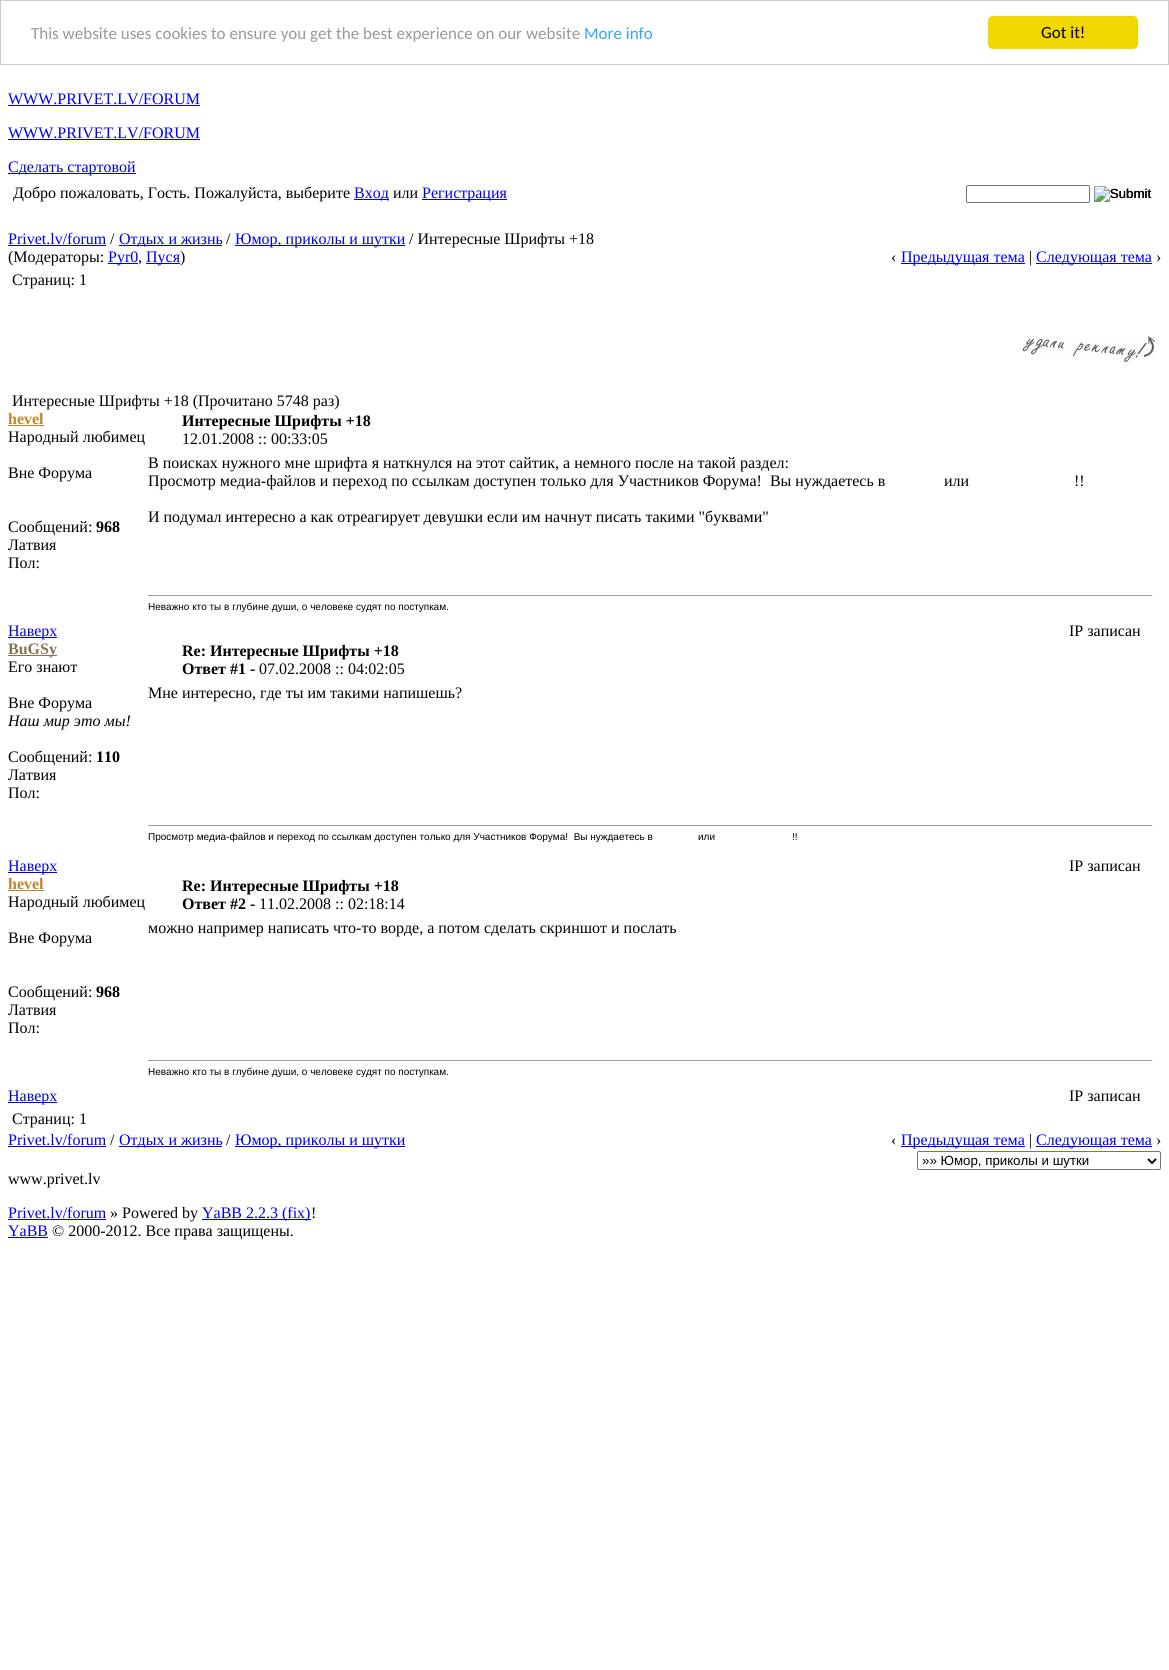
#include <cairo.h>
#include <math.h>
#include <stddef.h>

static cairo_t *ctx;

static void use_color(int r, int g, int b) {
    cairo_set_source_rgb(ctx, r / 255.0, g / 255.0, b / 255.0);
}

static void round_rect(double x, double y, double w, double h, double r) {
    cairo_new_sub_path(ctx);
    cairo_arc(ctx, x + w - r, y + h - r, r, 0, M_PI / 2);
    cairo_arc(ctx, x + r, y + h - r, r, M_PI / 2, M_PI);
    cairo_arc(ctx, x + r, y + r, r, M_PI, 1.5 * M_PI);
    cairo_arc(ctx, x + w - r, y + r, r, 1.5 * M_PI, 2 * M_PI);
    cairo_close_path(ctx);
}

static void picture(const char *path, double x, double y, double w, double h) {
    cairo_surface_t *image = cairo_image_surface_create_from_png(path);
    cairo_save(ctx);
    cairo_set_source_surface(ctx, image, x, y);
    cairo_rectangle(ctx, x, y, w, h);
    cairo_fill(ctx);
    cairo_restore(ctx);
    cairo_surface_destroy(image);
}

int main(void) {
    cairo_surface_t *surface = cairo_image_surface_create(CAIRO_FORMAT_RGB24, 1169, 1670);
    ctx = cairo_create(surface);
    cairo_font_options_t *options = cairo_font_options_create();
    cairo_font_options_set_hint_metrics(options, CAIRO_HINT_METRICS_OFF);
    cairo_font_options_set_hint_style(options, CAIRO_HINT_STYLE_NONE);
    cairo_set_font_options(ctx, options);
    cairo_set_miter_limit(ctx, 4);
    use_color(255, 255, 255);
    cairo_paint(ctx);
    cairo_rectangle(ctx, 0.5, 0.5, 1168, 64);
    use_color(204, 204, 204);
    cairo_set_line_width(ctx, 1);
    cairo_stroke(ctx);
    cairo_select_font_face(ctx, "Carlito", CAIRO_FONT_SLANT_NORMAL, CAIRO_FONT_WEIGHT_NORMAL);
    cairo_set_font_size(ctx, 17);
    use_color(153, 153, 153);
    cairo_move_to(ctx, 31, 39);
    cairo_show_text(ctx, "This website uses cookies to ensure you get the best experience on our website");
    use_color(49, 168, 240);
    cairo_move_to(ctx, 584, 39);
    cairo_show_text(ctx, "More info");
    use_color(241, 214, 0);
    round_rect(988, 16, 150, 33, 5);
    cairo_fill(ctx);
    use_color(0, 0, 0);
    cairo_move_to(ctx, 1041, 38);
    cairo_show_text(ctx, "Got it!");
    cairo_select_font_face(ctx, "Liberation Serif", CAIRO_FONT_SLANT_NORMAL, CAIRO_FONT_WEIGHT_NORMAL);
    cairo_set_font_size(ctx, 16);
    use_color(0, 0, 238);
    cairo_move_to(ctx, 8, 104);
    cairo_show_text(ctx, "WWW.PRIVET.LV/FORUM");
    cairo_rectangle(ctx, 8, 105, 192, 1);
    cairo_fill(ctx);
    cairo_move_to(ctx, 8, 138);
    cairo_show_text(ctx, "WWW.PRIVET.LV/FORUM");
    cairo_rectangle(ctx, 8, 139, 192, 1);
    cairo_fill(ctx);
    cairo_rectangle(ctx, 8, 173, 128, 1);
    cairo_fill(ctx);
    cairo_move_to(ctx, 8, 172);
    cairo_show_text(ctx, "Сделать стартовой");
    use_color(0, 0, 0);
    cairo_move_to(ctx, 13, 198);
    cairo_show_text(ctx, "Добро пожаловать, Гость. Пожалуйста, выберите");
    use_color(0, 0, 238);
    cairo_rectangle(ctx, 354, 199, 35, 1);
    cairo_fill(ctx);
    cairo_move_to(ctx, 354, 198);
    cairo_show_text(ctx, "Вход");
    use_color(0, 0, 0);
    cairo_move_to(ctx, 393, 198);
    cairo_show_text(ctx, "или");
    use_color(0, 0, 238);
    cairo_rectangle(ctx, 422, 199, 85, 1);
    cairo_fill(ctx);
    cairo_move_to(ctx, 422, 198);
    cairo_show_text(ctx, "Регистрация");
    round_rect(966.5, 185.5, 123, 17, 1.5);
    use_color(118, 118, 118);
    cairo_stroke(ctx);
    picture("img1.png", 1094, 186, 57, 16);
    cairo_select_font_face(ctx, "Liberation Sans", CAIRO_FONT_SLANT_NORMAL, CAIRO_FONT_WEIGHT_NORMAL);
    cairo_set_font_size(ctx, 13.3);
    use_color(0, 0, 0);
    cairo_move_to(ctx, 1110, 198);
    cairo_show_text(ctx, "Submit");
    cairo_select_font_face(ctx, "Liberation Serif", CAIRO_FONT_SLANT_NORMAL, CAIRO_FONT_WEIGHT_NORMAL);
    cairo_set_font_size(ctx, 16);
    use_color(0, 0, 238);
    cairo_move_to(ctx, 8, 244);
    cairo_show_text(ctx, "Privet.lv/forum");
    cairo_rectangle(ctx, 8, 245, 98, 1);
    cairo_fill(ctx);
    use_color(0, 0, 0);
    cairo_move_to(ctx, 110, 244);
    cairo_show_text(ctx, "/");
    use_color(0, 0, 238);
    cairo_rectangle(ctx, 119, 245, 103, 1);
    cairo_fill(ctx);
    cairo_move_to(ctx, 119, 244);
    cairo_show_text(ctx, "Отдых и жизнь");
    use_color(0, 0, 0);
    cairo_move_to(ctx, 226, 244);
    cairo_show_text(ctx, "/");
    use_color(0, 0, 238);
    cairo_rectangle(ctx, 235, 245, 170, 1);
    cairo_fill(ctx);
    cairo_move_to(ctx, 235, 244);
    cairo_show_text(ctx, "Юмор, приколы и шутки");
    use_color(0, 0, 0);
    cairo_move_to(ctx, 409, 244);
    cairo_show_text(ctx, "/ Интересные Шрифты +18");
    cairo_move_to(ctx, 8, 262);
    cairo_show_text(ctx, "(Модераторы:");
    use_color(0, 0, 238);
    cairo_rectangle(ctx, 108, 263, 30, 1);
    cairo_fill(ctx);
    cairo_move_to(ctx, 108, 262);
    cairo_show_text(ctx, "Pyr0");
    use_color(0, 0, 0);
    cairo_move_to(ctx, 138, 262);
    cairo_show_text(ctx, ",");
    use_color(0, 0, 238);
    cairo_rectangle(ctx, 146, 263, 34, 1);
    cairo_fill(ctx);
    cairo_move_to(ctx, 146, 262);
    cairo_show_text(ctx, "Пуся");
    use_color(0, 0, 0);
    cairo_move_to(ctx, 180, 262);
    cairo_show_text(ctx, ")");
    cairo_move_to(ctx, 891, 262);
    cairo_show_text(ctx, "‹");
    use_color(0, 0, 238);
    cairo_rectangle(ctx, 901, 263, 124, 1);
    cairo_fill(ctx);
    cairo_move_to(ctx, 901, 262);
    cairo_show_text(ctx, "Предыдущая тема");
    use_color(0, 0, 0);
    cairo_move_to(ctx, 1029, 262);
    cairo_show_text(ctx, "|");
    use_color(0, 0, 238);
    cairo_rectangle(ctx, 1036, 263, 116, 1);
    cairo_fill(ctx);
    cairo_move_to(ctx, 1036, 262);
    cairo_show_text(ctx, "Следующая тема");
    use_color(0, 0, 0);
    cairo_move_to(ctx, 1156, 262);
    cairo_show_text(ctx, "›");
    cairo_move_to(ctx, 12, 285);
    cairo_show_text(ctx, "Страниц: 1");
    picture("img2.png", 1022, 336, 133, 26);
    cairo_move_to(ctx, 12, 406);
    cairo_show_text(ctx, "Интересные Шрифты +18 (Прочитано 5748 раз)");
    cairo_select_font_face(ctx, "Liberation Serif", CAIRO_FONT_SLANT_NORMAL, CAIRO_FONT_WEIGHT_BOLD);
    use_color(195, 134, 42);
    cairo_move_to(ctx, 8, 424);
    cairo_show_text(ctx, "hevel");
    cairo_rectangle(ctx, 8, 425, 36, 1);
    cairo_fill(ctx);
    cairo_select_font_face(ctx, "Liberation Serif", CAIRO_FONT_SLANT_NORMAL, CAIRO_FONT_WEIGHT_NORMAL);
    use_color(0, 0, 0);
    cairo_move_to(ctx, 8, 442);
    cairo_show_text(ctx, "Народный любимец");
    cairo_move_to(ctx, 8, 478);
    cairo_show_text(ctx, "Вне Форума");
    cairo_move_to(ctx, 8, 532);
    cairo_show_text(ctx, "Сообщений:");
    cairo_select_font_face(ctx, "Liberation Serif", CAIRO_FONT_SLANT_NORMAL, CAIRO_FONT_WEIGHT_BOLD);
    cairo_move_to(ctx, 96, 532);
    cairo_show_text(ctx, "968");
    cairo_select_font_face(ctx, "Liberation Serif", CAIRO_FONT_SLANT_NORMAL, CAIRO_FONT_WEIGHT_NORMAL);
    cairo_move_to(ctx, 8, 550);
    cairo_show_text(ctx, "Латвия");
    cairo_move_to(ctx, 8, 568);
    cairo_show_text(ctx, "Пол:");
    cairo_select_font_face(ctx, "Liberation Serif", CAIRO_FONT_SLANT_NORMAL, CAIRO_FONT_WEIGHT_BOLD);
    cairo_move_to(ctx, 182, 426);
    cairo_show_text(ctx, "Интересные Шрифты +18");
    cairo_select_font_face(ctx, "Liberation Serif", CAIRO_FONT_SLANT_NORMAL, CAIRO_FONT_WEIGHT_NORMAL);
    cairo_move_to(ctx, 182, 444);
    cairo_show_text(ctx, "12.01.2008 :: 00:33:05");
    cairo_move_to(ctx, 148, 468);
    cairo_show_text(ctx, "В поисках нужного мне шрифта я наткнулся на этот сайтик, а немного после на такой раздел:");
    cairo_move_to(ctx, 148, 486);
    cairo_show_text(ctx, "Просмотр медиа-файлов и переход по ссылкам доступен только для Участников Форума!  Вы нуждаетесь в");
    cairo_move_to(ctx, 944, 486);
    cairo_show_text(ctx, "или");
    cairo_move_to(ctx, 1074, 486);
    cairo_show_text(ctx, "!!");
    cairo_move_to(ctx, 148, 522);
    cairo_show_text(ctx, "И подумал интересно а как отреагирует девушки если им начнут писать такими \"буквами\"");
    use_color(0, 0, 238);
    cairo_rectangle(ctx, 8, 637, 49, 1);
    cairo_fill(ctx);
    cairo_move_to(ctx, 8, 636);
    cairo_show_text(ctx, "Наверх");
    use_color(159, 159, 159);
    cairo_rectangle(ctx, 148, 595, 1005, 1);
    cairo_fill(ctx);
    use_color(238, 238, 238);
    cairo_rectangle(ctx, 1152, 595, 1, 1);
    cairo_fill(ctx);
    cairo_select_font_face(ctx, "Liberation Sans", CAIRO_FONT_SLANT_NORMAL, CAIRO_FONT_WEIGHT_NORMAL);
    cairo_set_font_size(ctx, 10);
    use_color(0, 0, 0);
    cairo_move_to(ctx, 148, 610);
    cairo_show_text(ctx, "Неважно кто ты в глубине души, о человеке судят по поступкам.");
    cairo_select_font_face(ctx, "Liberation Serif", CAIRO_FONT_SLANT_NORMAL, CAIRO_FONT_WEIGHT_NORMAL);
    cairo_set_font_size(ctx, 16);
    cairo_move_to(ctx, 1069, 636);
    cairo_show_text(ctx, "IP записан");
    use_color(135, 115, 84);
    cairo_rectangle(ctx, 8, 655, 49, 1);
    cairo_fill(ctx);
    cairo_select_font_face(ctx, "Liberation Serif", CAIRO_FONT_SLANT_NORMAL, CAIRO_FONT_WEIGHT_BOLD);
    cairo_move_to(ctx, 8, 654);
    cairo_show_text(ctx, "BuGSy");
    cairo_select_font_face(ctx, "Liberation Serif", CAIRO_FONT_SLANT_NORMAL, CAIRO_FONT_WEIGHT_NORMAL);
    use_color(0, 0, 0);
    cairo_move_to(ctx, 8, 672);
    cairo_show_text(ctx, "Его знают");
    cairo_move_to(ctx, 8, 708);
    cairo_show_text(ctx, "Вне Форума");
    cairo_select_font_face(ctx, "Liberation Serif", CAIRO_FONT_SLANT_ITALIC, CAIRO_FONT_WEIGHT_NORMAL);
    cairo_move_to(ctx, 8, 726);
    cairo_show_text(ctx, "Наш мир это мы!");
    cairo_select_font_face(ctx, "Liberation Serif", CAIRO_FONT_SLANT_NORMAL, CAIRO_FONT_WEIGHT_NORMAL);
    cairo_move_to(ctx, 8, 762);
    cairo_show_text(ctx, "Сообщений:");
    cairo_select_font_face(ctx, "Liberation Serif", CAIRO_FONT_SLANT_NORMAL, CAIRO_FONT_WEIGHT_BOLD);
    cairo_move_to(ctx, 96, 762);
    cairo_show_text(ctx, "110");
    cairo_select_font_face(ctx, "Liberation Serif", CAIRO_FONT_SLANT_NORMAL, CAIRO_FONT_WEIGHT_NORMAL);
    cairo_move_to(ctx, 8, 780);
    cairo_show_text(ctx, "Латвия");
    cairo_move_to(ctx, 8, 798);
    cairo_show_text(ctx, "Пол:");
    cairo_select_font_face(ctx, "Liberation Serif", CAIRO_FONT_SLANT_NORMAL, CAIRO_FONT_WEIGHT_BOLD);
    cairo_move_to(ctx, 182, 656);
    cairo_show_text(ctx, "Re: Интересные Шрифты +18");
    cairo_move_to(ctx, 182, 674);
    cairo_show_text(ctx, "Ответ #1 -");
    cairo_select_font_face(ctx, "Liberation Serif", CAIRO_FONT_SLANT_NORMAL, CAIRO_FONT_WEIGHT_NORMAL);
    cairo_move_to(ctx, 259, 674);
    cairo_show_text(ctx, "07.02.2008 :: 04:02:05");
    cairo_move_to(ctx, 148, 698);
    cairo_show_text(ctx, "Мне интересно, где ты им такими напишешь?");
    use_color(0, 0, 238);
    cairo_rectangle(ctx, 8, 872, 49, 1);
    cairo_fill(ctx);
    cairo_move_to(ctx, 8, 871);
    cairo_show_text(ctx, "Наверх");
    use_color(159, 159, 159);
    cairo_rectangle(ctx, 148, 825, 1005, 1);
    cairo_fill(ctx);
    use_color(238, 238, 238);
    cairo_rectangle(ctx, 1152, 825, 1, 1);
    cairo_fill(ctx);
    cairo_select_font_face(ctx, "Liberation Sans", CAIRO_FONT_SLANT_NORMAL, CAIRO_FONT_WEIGHT_NORMAL);
    cairo_set_font_size(ctx, 10);
    use_color(0, 0, 0);
    cairo_move_to(ctx, 148, 840);
    cairo_show_text(ctx, "Просмотр медиа-файлов и переход по ссылкам доступен только для Участников Форума!  Вы нуждаетесь в");
    cairo_move_to(ctx, 698, 840);
    cairo_show_text(ctx, "или");
    cairo_move_to(ctx, 792, 840);
    cairo_show_text(ctx, "!!");
    cairo_select_font_face(ctx, "Liberation Serif", CAIRO_FONT_SLANT_NORMAL, CAIRO_FONT_WEIGHT_NORMAL);
    cairo_set_font_size(ctx, 16);
    cairo_move_to(ctx, 1069, 871);
    cairo_show_text(ctx, "IP записан");
    cairo_select_font_face(ctx, "Liberation Serif", CAIRO_FONT_SLANT_NORMAL, CAIRO_FONT_WEIGHT_BOLD);
    use_color(195, 134, 42);
    cairo_move_to(ctx, 8, 889);
    cairo_show_text(ctx, "hevel");
    cairo_rectangle(ctx, 8, 890, 36, 1);
    cairo_fill(ctx);
    cairo_select_font_face(ctx, "Liberation Serif", CAIRO_FONT_SLANT_NORMAL, CAIRO_FONT_WEIGHT_NORMAL);
    use_color(0, 0, 0);
    cairo_move_to(ctx, 8, 907);
    cairo_show_text(ctx, "Народный любимец");
    cairo_move_to(ctx, 8, 943);
    cairo_show_text(ctx, "Вне Форума");
    cairo_move_to(ctx, 8, 997);
    cairo_show_text(ctx, "Сообщений:");
    cairo_select_font_face(ctx, "Liberation Serif", CAIRO_FONT_SLANT_NORMAL, CAIRO_FONT_WEIGHT_BOLD);
    cairo_move_to(ctx, 96, 997);
    cairo_show_text(ctx, "968");
    cairo_select_font_face(ctx, "Liberation Serif", CAIRO_FONT_SLANT_NORMAL, CAIRO_FONT_WEIGHT_NORMAL);
    cairo_move_to(ctx, 8, 1015);
    cairo_show_text(ctx, "Латвия");
    cairo_move_to(ctx, 8, 1033);
    cairo_show_text(ctx, "Пол:");
    cairo_select_font_face(ctx, "Liberation Serif", CAIRO_FONT_SLANT_NORMAL, CAIRO_FONT_WEIGHT_BOLD);
    cairo_move_to(ctx, 182, 891);
    cairo_show_text(ctx, "Re: Интересные Шрифты +18");
    cairo_move_to(ctx, 182, 909);
    cairo_show_text(ctx, "Ответ #2 -");
    cairo_select_font_face(ctx, "Liberation Serif", CAIRO_FONT_SLANT_NORMAL, CAIRO_FONT_WEIGHT_NORMAL);
    cairo_move_to(ctx, 259, 909);
    cairo_show_text(ctx, "11.02.2008 :: 02:18:14");
    cairo_move_to(ctx, 148, 933);
    cairo_show_text(ctx, "можно например написать что-то ворде, а потом сделать скриншот и послать");
    use_color(0, 0, 238);
    cairo_rectangle(ctx, 8, 1102, 49, 1);
    cairo_fill(ctx);
    cairo_move_to(ctx, 8, 1101);
    cairo_show_text(ctx, "Наверх");
    use_color(159, 159, 159);
    cairo_rectangle(ctx, 148, 1060, 1005, 1);
    cairo_fill(ctx);
    use_color(238, 238, 238);
    cairo_rectangle(ctx, 1152, 1060, 1, 1);
    cairo_fill(ctx);
    cairo_select_font_face(ctx, "Liberation Sans", CAIRO_FONT_SLANT_NORMAL, CAIRO_FONT_WEIGHT_NORMAL);
    cairo_set_font_size(ctx, 10);
    use_color(0, 0, 0);
    cairo_move_to(ctx, 148, 1075);
    cairo_show_text(ctx, "Неважно кто ты в глубине души, о человеке судят по поступкам.");
    cairo_select_font_face(ctx, "Liberation Serif", CAIRO_FONT_SLANT_NORMAL, CAIRO_FONT_WEIGHT_NORMAL);
    cairo_set_font_size(ctx, 16);
    cairo_move_to(ctx, 1069, 1101);
    cairo_show_text(ctx, "IP записан");
    cairo_move_to(ctx, 12, 1124);
    cairo_show_text(ctx, "Страниц: 1");
    use_color(0, 0, 238);
    cairo_move_to(ctx, 8, 1145);
    cairo_show_text(ctx, "Privet.lv/forum");
    cairo_rectangle(ctx, 8, 1146, 98, 1);
    cairo_fill(ctx);
    use_color(0, 0, 0);
    cairo_move_to(ctx, 110, 1145);
    cairo_show_text(ctx, "/");
    use_color(0, 0, 238);
    cairo_rectangle(ctx, 119, 1146, 103, 1);
    cairo_fill(ctx);
    cairo_move_to(ctx, 119, 1145);
    cairo_show_text(ctx, "Отдых и жизнь");
    use_color(0, 0, 0);
    cairo_move_to(ctx, 226, 1145);
    cairo_show_text(ctx, "/");
    use_color(0, 0, 238);
    cairo_rectangle(ctx, 235, 1146, 170, 1);
    cairo_fill(ctx);
    cairo_move_to(ctx, 235, 1145);
    cairo_show_text(ctx, "Юмор, приколы и шутки");
    use_color(0, 0, 0);
    cairo_move_to(ctx, 891, 1145);
    cairo_show_text(ctx, "‹");
    use_color(0, 0, 238);
    cairo_rectangle(ctx, 901, 1146, 124, 1);
    cairo_fill(ctx);
    cairo_move_to(ctx, 901, 1145);
    cairo_show_text(ctx, "Предыдущая тема");
    use_color(0, 0, 0);
    cairo_move_to(ctx, 1029, 1145);
    cairo_show_text(ctx, "|");
    use_color(0, 0, 238);
    cairo_rectangle(ctx, 1036, 1146, 116, 1);
    cairo_fill(ctx);
    cairo_move_to(ctx, 1036, 1145);
    cairo_show_text(ctx, "Следующая тема");
    use_color(0, 0, 0);
    cairo_move_to(ctx, 1156, 1145);
    cairo_show_text(ctx, "›");
    round_rect(917.5, 1151.5, 243, 18, 1.5);
    use_color(118, 118, 118);
    cairo_stroke(ctx);
    cairo_new_path(ctx);
    cairo_move_to(ctx, 1148, 1159);
    cairo_line_to(ctx, 1152, 1163);
    cairo_line_to(ctx, 1156, 1159);
    use_color(0, 0, 0);
    cairo_set_line_width(ctx, 2);
    cairo_stroke(ctx);
    cairo_select_font_face(ctx, "Liberation Sans", CAIRO_FONT_SLANT_NORMAL, CAIRO_FONT_WEIGHT_NORMAL);
    cairo_set_font_size(ctx, 13.3);
    cairo_move_to(ctx, 922, 1165);
    cairo_show_text(ctx, "»» Юмор, приколы и шутки");
    cairo_select_font_face(ctx, "Liberation Serif", CAIRO_FONT_SLANT_NORMAL, CAIRO_FONT_WEIGHT_NORMAL);
    cairo_set_font_size(ctx, 16);
    cairo_move_to(ctx, 8, 1184);
    cairo_show_text(ctx, "www.privet.lv");
    use_color(0, 0, 238);
    cairo_move_to(ctx, 8, 1218);
    cairo_show_text(ctx, "Privet.lv/forum");
    cairo_rectangle(ctx, 8, 1219, 98, 1);
    cairo_fill(ctx);
    use_color(0, 0, 0);
    cairo_move_to(ctx, 110, 1218);
    cairo_show_text(ctx, "» Powered by");
    use_color(0, 0, 238);
    cairo_rectangle(ctx, 202, 1219, 109, 1);
    cairo_fill(ctx);
    cairo_move_to(ctx, 202, 1218);
    cairo_show_text(ctx, "YaBB 2.2.3 (fix)");
    use_color(0, 0, 0);
    cairo_move_to(ctx, 311, 1218);
    cairo_show_text(ctx, "!");
    use_color(0, 0, 238);
    cairo_move_to(ctx, 8, 1236);
    cairo_show_text(ctx, "YaBB");
    cairo_rectangle(ctx, 8, 1237, 40, 1);
    cairo_fill(ctx);
    use_color(0, 0, 0);
    cairo_move_to(ctx, 52, 1236);
    cairo_show_text(ctx, "© 2000-2012. Все права защищены.");
    cairo_surface_write_to_png(surface, "result.png");
    cairo_font_options_destroy(options);
    cairo_destroy(ctx);
    cairo_surface_destroy(surface);
    return 0;
}
